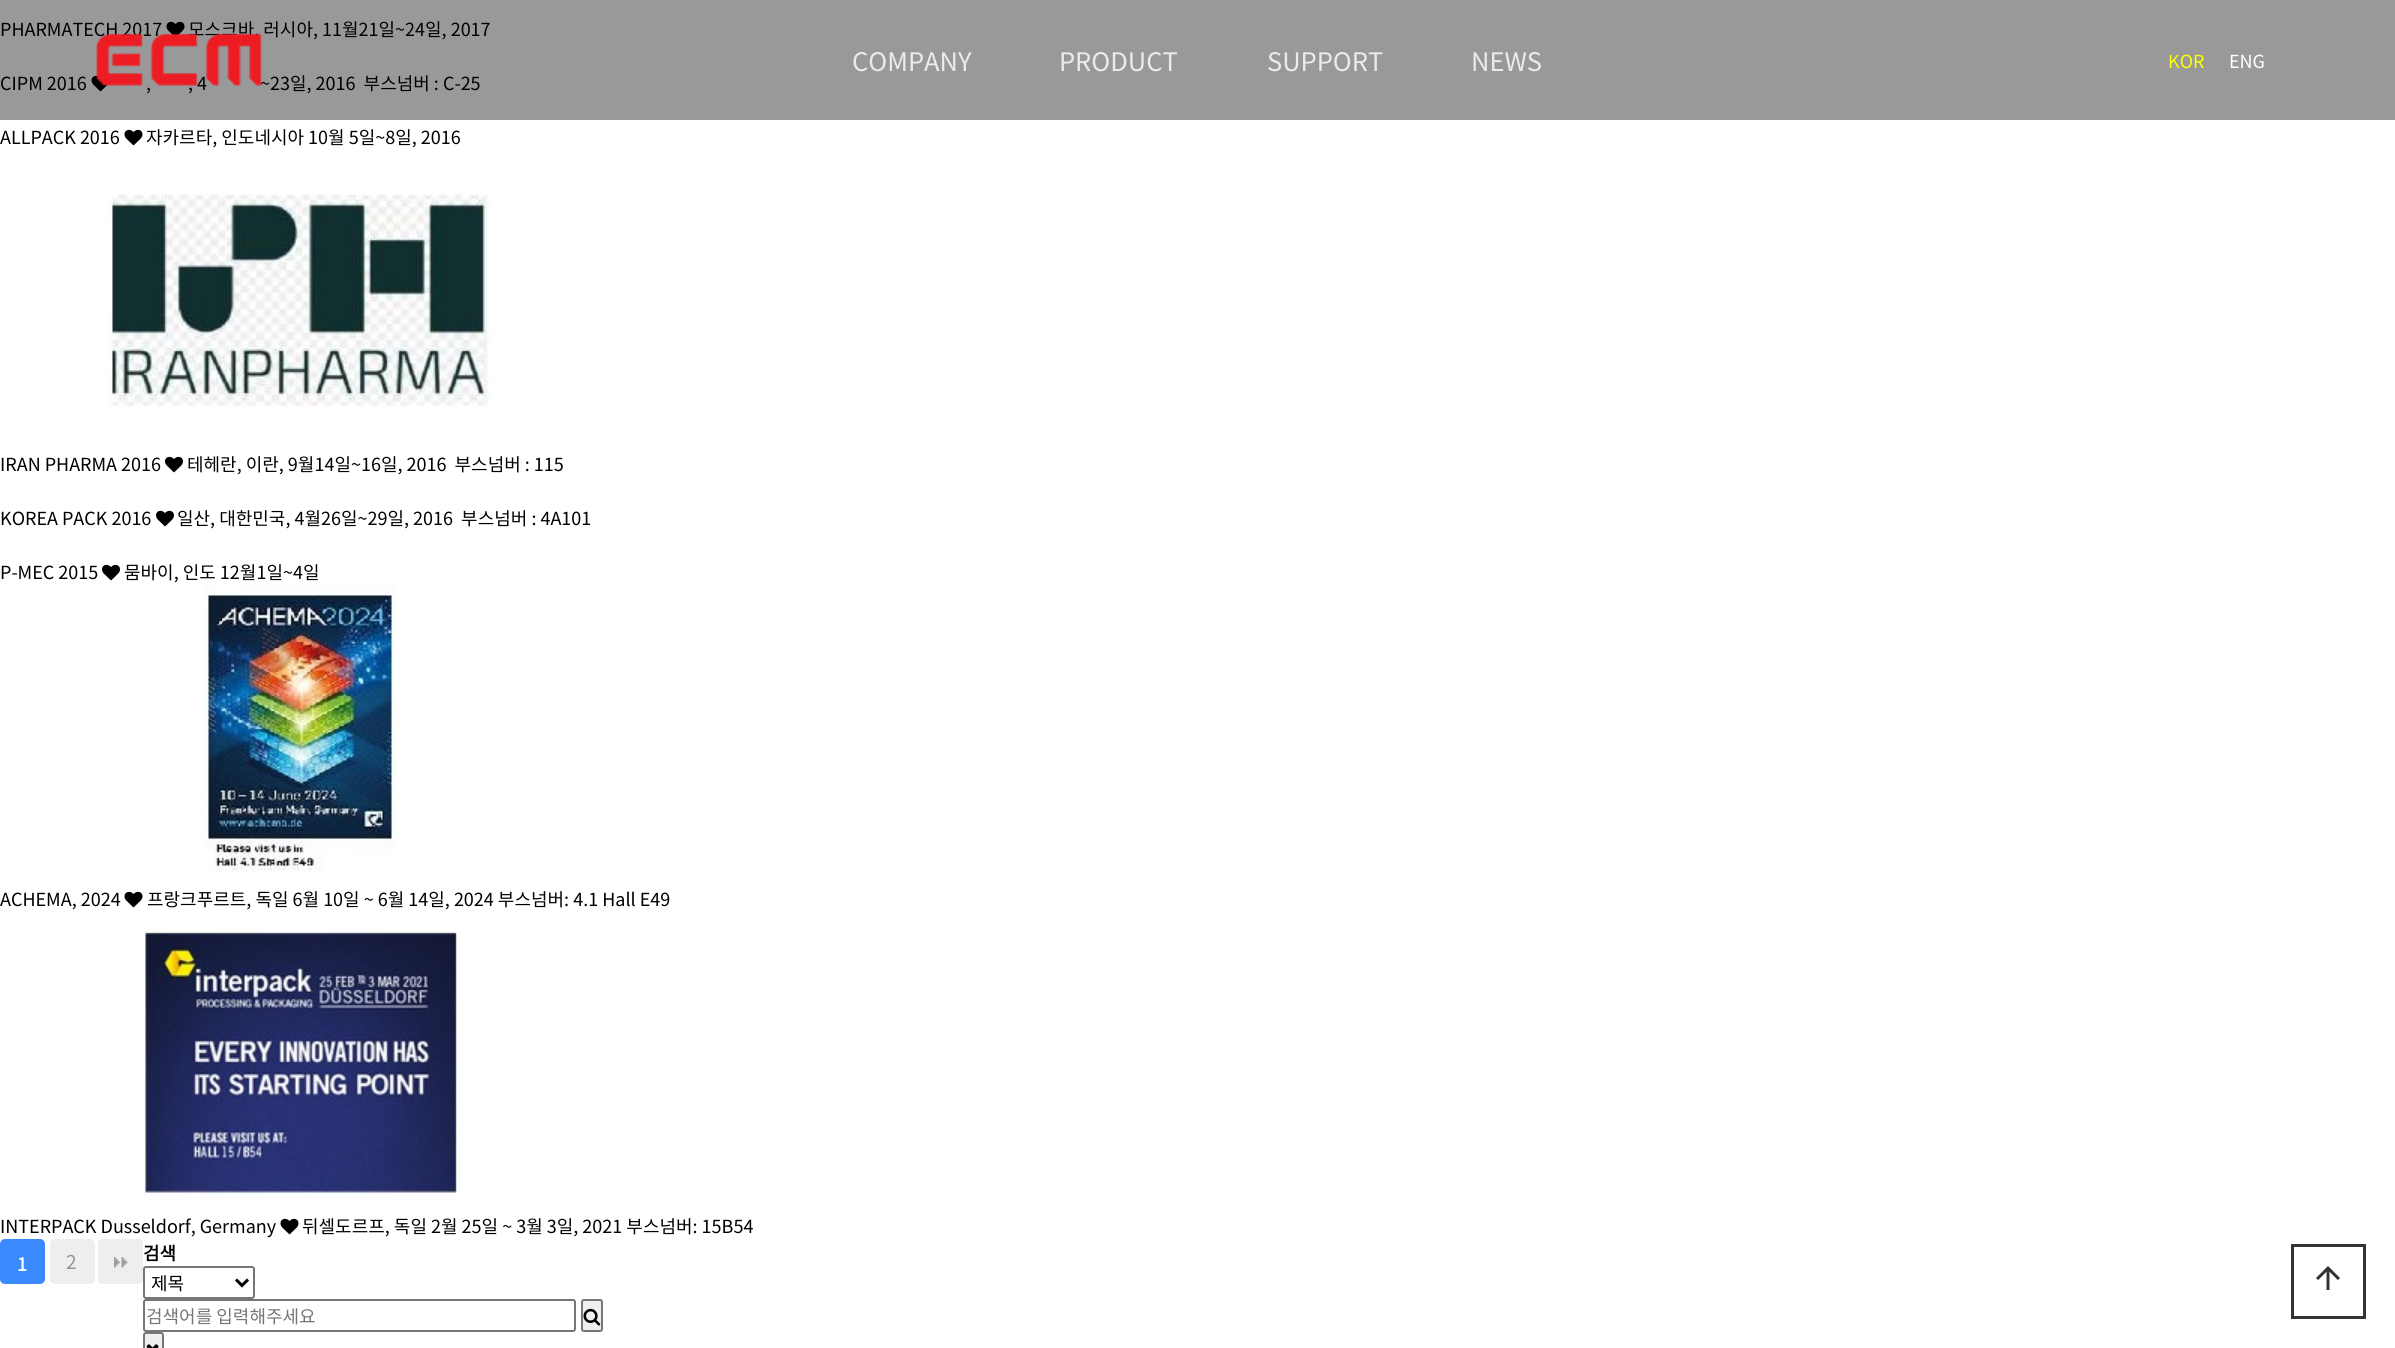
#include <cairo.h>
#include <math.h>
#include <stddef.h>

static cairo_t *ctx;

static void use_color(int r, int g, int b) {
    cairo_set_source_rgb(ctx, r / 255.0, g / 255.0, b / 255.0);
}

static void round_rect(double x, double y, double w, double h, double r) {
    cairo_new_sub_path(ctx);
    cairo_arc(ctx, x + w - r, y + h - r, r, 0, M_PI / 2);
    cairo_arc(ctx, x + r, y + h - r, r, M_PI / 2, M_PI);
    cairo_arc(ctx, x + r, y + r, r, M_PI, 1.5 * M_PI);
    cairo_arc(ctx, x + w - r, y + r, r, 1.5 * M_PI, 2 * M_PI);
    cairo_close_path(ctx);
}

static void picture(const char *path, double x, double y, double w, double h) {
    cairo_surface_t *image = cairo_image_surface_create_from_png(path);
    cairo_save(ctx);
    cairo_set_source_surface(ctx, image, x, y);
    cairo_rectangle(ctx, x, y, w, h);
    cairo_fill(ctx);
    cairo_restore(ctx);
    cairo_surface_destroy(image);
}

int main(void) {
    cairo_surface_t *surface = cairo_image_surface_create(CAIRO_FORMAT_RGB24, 2395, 1348);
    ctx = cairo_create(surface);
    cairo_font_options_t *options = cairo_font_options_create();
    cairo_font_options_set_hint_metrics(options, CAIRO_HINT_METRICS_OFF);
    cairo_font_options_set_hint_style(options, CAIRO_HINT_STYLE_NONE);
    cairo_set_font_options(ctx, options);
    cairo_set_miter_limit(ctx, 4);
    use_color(255, 255, 255);
    cairo_paint(ctx);
    use_color(153, 153, 153);
    cairo_rectangle(ctx, 0, 0, 2395, 120);
    cairo_fill(ctx);
    cairo_select_font_face(ctx, "Noto Sans KR", CAIRO_FONT_SLANT_NORMAL, CAIRO_FONT_WEIGHT_NORMAL);
    cairo_set_font_size(ctx, 18);
    use_color(0, 0, 0);
    cairo_move_to(ctx, 0, 36);
    cairo_show_text(ctx, "PHARMATECH 2017");
    picture("img1.png", 166, 21, 19, 15);
    cairo_move_to(ctx, 188, 36);
    cairo_show_text(ctx, "모스크바, 러시아, 11월21일~24일, 2017");
    cairo_move_to(ctx, 0, 90);
    cairo_show_text(ctx, "CIPM 2016");
    picture("img2.png", 91, 75, 17, 17);
    cairo_move_to(ctx, 146, 90);
    cairo_show_text(ctx, ",");
    cairo_move_to(ctx, 188, 90);
    cairo_show_text(ctx, ", 4");
    cairo_move_to(ctx, 260, 90);
    cairo_show_text(ctx, "~23일, 2016  부스넘버 : C-25");
    cairo_move_to(ctx, 0, 144);
    cairo_show_text(ctx, "ALLPACK 2016");
    picture("img3.png", 124, 129, 19, 17);
    cairo_move_to(ctx, 146, 144);
    cairo_show_text(ctx, "자카르타, 인도네시아 10월 5일~8일, 2016");
    picture("img4.png", 108, 193, 384, 214);
    cairo_move_to(ctx, 0, 471);
    cairo_show_text(ctx, "IRAN PHARMA 2016");
    picture("img5.png", 165, 456, 18, 17);
    cairo_move_to(ctx, 187, 471);
    cairo_show_text(ctx, "테헤란, 이란, 9월14일~16일, 2016  부스넘버 : 115");
    cairo_move_to(ctx, 0, 525);
    cairo_show_text(ctx, "KOREA PACK 2016");
    picture("img5.png", 156, 510, 18, 17);
    cairo_move_to(ctx, 177, 525);
    cairo_show_text(ctx, "일산, 대한민국, 4월26일~29일, 2016  부스넘버 : 4A101");
    cairo_move_to(ctx, 0, 579);
    cairo_show_text(ctx, "P-MEC 2015");
    picture("img5.png", 102, 564, 18, 17);
    cairo_move_to(ctx, 124, 579);
    cairo_show_text(ctx, "뭄바이, 인도 12월1일~4일");
    picture("img6.png", 203, 585, 200, 288);
    cairo_move_to(ctx, 0, 906);
    cairo_show_text(ctx, "ACHEMA, 2024");
    picture("img3.png", 124, 891, 19, 17);
    cairo_move_to(ctx, 147, 906);
    cairo_show_text(ctx, "프랑크푸르트, 독일 6월 10일 ~ 6월 14일, 2024 부스넘버: 4.1 Hall E49");
    picture("img7.png", 144, 927, 313, 270);
    cairo_move_to(ctx, 0, 1233);
    cairo_show_text(ctx, "INTERPACK Dusseldorf, Germany");
    picture("img3.png", 280, 1218, 19, 17);
    cairo_move_to(ctx, 302, 1233);
    cairo_show_text(ctx, "뒤셀도르프, 독일 2월 25일 ~ 3월 3일, 2021 부스넘버: 15B54");
    use_color(58, 138, 253);
    round_rect(1, 1240, 43, 43, 4);
    cairo_fill_preserve(ctx);
    cairo_stroke(ctx);
    cairo_select_font_face(ctx, "Noto Sans KR", CAIRO_FONT_SLANT_NORMAL, CAIRO_FONT_WEIGHT_BOLD);
    use_color(255, 255, 255);
    cairo_move_to(ctx, 17, 1271);
    cairo_show_text(ctx, "1");
    use_color(238, 238, 238);
    round_rect(51, 1240, 43, 43, 4);
    cairo_fill_preserve(ctx);
    cairo_stroke(ctx);
    cairo_select_font_face(ctx, "Noto Sans KR", CAIRO_FONT_SLANT_NORMAL, CAIRO_FONT_WEIGHT_NORMAL);
    cairo_set_font_size(ctx, 19);
    use_color(149, 149, 149);
    cairo_move_to(ctx, 66, 1269);
    cairo_show_text(ctx, "2");
    use_color(238, 238, 238);
    round_rect(98, 1239, 45, 45, 5);
    cairo_fill(ctx);
    picture("img8.png", 114, 1257, 14, 11);
    round_rect(99, 1240, 43, 43, 4);
    cairo_stroke(ctx);
    cairo_select_font_face(ctx, "Noto Sans KR", CAIRO_FONT_SLANT_NORMAL, CAIRO_FONT_WEIGHT_BOLD);
    cairo_set_font_size(ctx, 18);
    use_color(0, 0, 0);
    cairo_move_to(ctx, 143, 1260);
    cairo_show_text(ctx, "검색");
    round_rect(144, 1267, 110, 31, 2);
    use_color(118, 118, 118);
    cairo_stroke(ctx);
    cairo_new_path(ctx);
    cairo_move_to(ctx, 236, 1279.5);
    cairo_line_to(ctx, 242, 1285.5);
    cairo_line_to(ctx, 248, 1279.5);
    use_color(0, 0, 0);
    cairo_set_line_width(ctx, 3);
    cairo_stroke(ctx);
    cairo_select_font_face(ctx, "Noto Sans KR", CAIRO_FONT_SLANT_NORMAL, CAIRO_FONT_WEIGHT_NORMAL);
    cairo_move_to(ctx, 151, 1290);
    cairo_show_text(ctx, "제목");
    round_rect(144, 1300, 431, 31, 2);
    use_color(118, 118, 118);
    cairo_set_line_width(ctx, 2);
    cairo_stroke(ctx);
    use_color(117, 117, 117);
    cairo_move_to(ctx, 146, 1323);
    cairo_show_text(ctx, "검색어를 입력해주세요");
    use_color(239, 239, 239);
    round_rect(582, 1300, 20, 31, 2);
    cairo_fill_preserve(ctx);
    use_color(118, 118, 118);
    cairo_stroke(ctx);
    picture("img9.png", 583, 1308, 18, 18);
    use_color(239, 239, 239);
    round_rect(144, 1333, 19, 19, 2);
    cairo_fill_preserve(ctx);
    use_color(118, 118, 118);
    cairo_stroke(ctx);
    picture("img10.png", 146, 1344, 13, 4);
    picture("img11.png", 96, 34, 166, 52);
    cairo_set_font_size(ctx, 25.5);
    use_color(235, 235, 235);
    cairo_move_to(ctx, 852, 71);
    cairo_show_text(ctx, "COMPANY");
    cairo_move_to(ctx, 1059, 71);
    cairo_show_text(ctx, "PRODUCT");
    cairo_move_to(ctx, 1267, 71);
    cairo_show_text(ctx, "SUPPORT");
    cairo_move_to(ctx, 1471, 71);
    cairo_show_text(ctx, "NEWS");
    cairo_set_font_size(ctx, 18);
    use_color(255, 255, 0);
    cairo_move_to(ctx, 2168, 68);
    cairo_show_text(ctx, "KOR");
    use_color(255, 255, 255);
    cairo_move_to(ctx, 2229, 68);
    cairo_show_text(ctx, "ENG");
    cairo_rectangle(ctx, 2292.5, 1245.5, 72, 72);
    use_color(51, 51, 51);
    cairo_set_line_width(ctx, 3);
    cairo_stroke(ctx);
    picture("img12.png", 2316, 1266, 24, 24);
    cairo_surface_write_to_png(surface, "result.png");
    cairo_font_options_destroy(options);
    cairo_destroy(ctx);
    cairo_surface_destroy(surface);
    return 0;
}
